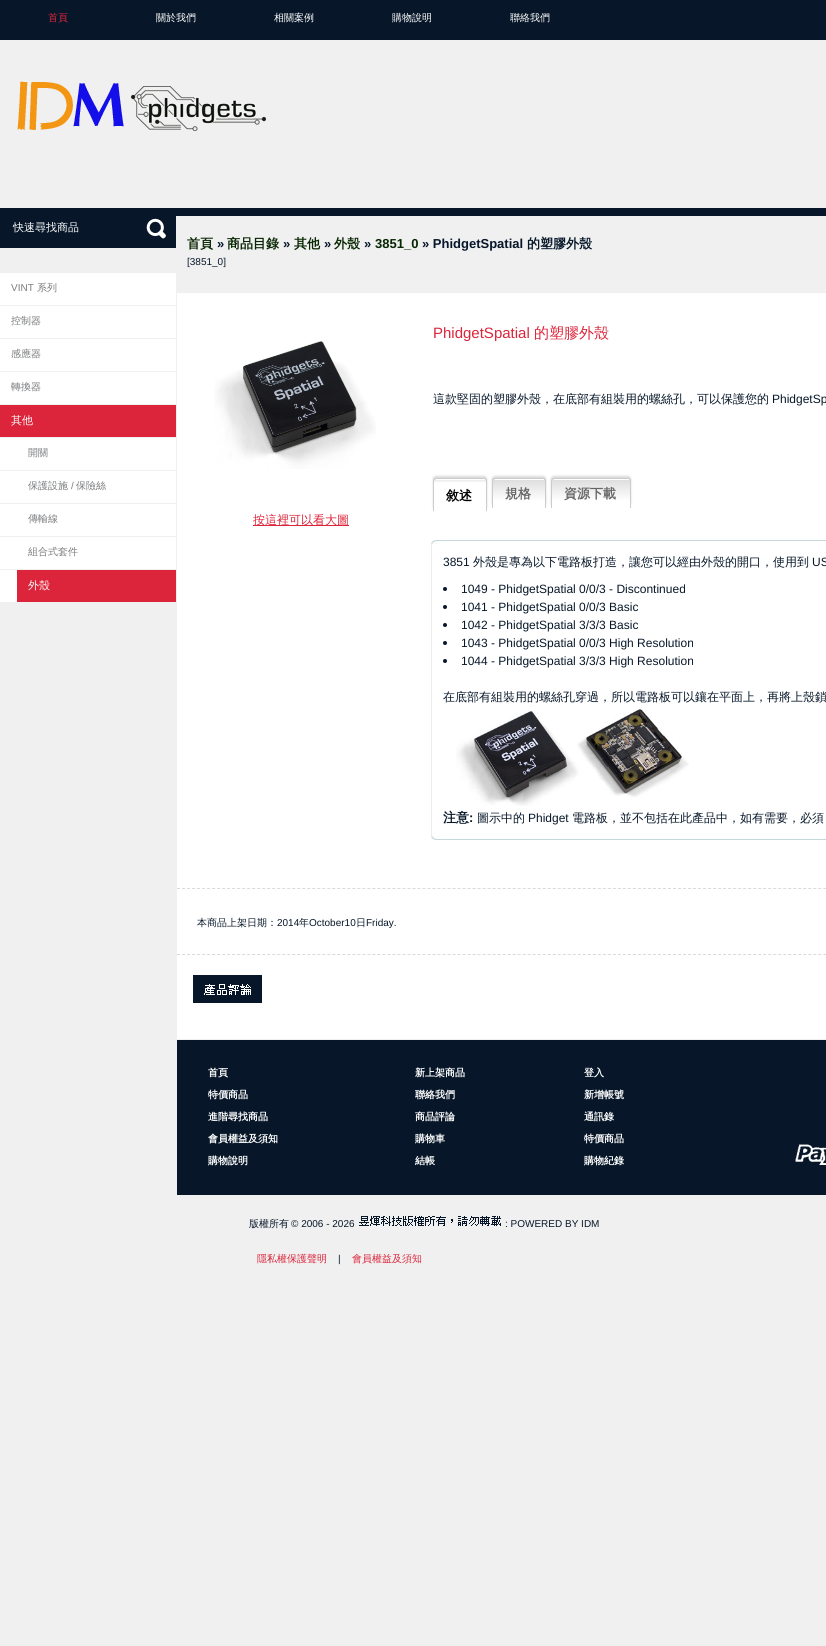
#include <cairo.h>
#include <math.h>
#include <stddef.h>

static cairo_t *ctx;

static void use_color(int r, int g, int b) {
    cairo_set_source_rgb(ctx, r / 255.0, g / 255.0, b / 255.0);
}

static void round_rect(double x, double y, double w, double h, double r) {
    cairo_new_sub_path(ctx);
    cairo_arc(ctx, x + w - r, y + h - r, r, 0, M_PI / 2);
    cairo_arc(ctx, x + r, y + h - r, r, M_PI / 2, M_PI);
    cairo_arc(ctx, x + r, y + r, r, M_PI, 1.5 * M_PI);
    cairo_arc(ctx, x + w - r, y + r, r, 1.5 * M_PI, 2 * M_PI);
    cairo_close_path(ctx);
}

static void shadow(double x, double y, double w, double h, double r, double blur, double alpha) {
    cairo_push_group_with_content(ctx, CAIRO_CONTENT_ALPHA);
    cairo_set_operator(ctx, CAIRO_OPERATOR_SOURCE);
    for (int i = 15; i >= -15 && fmin(w, h) + blur * i / 3 > 0; i -= 2) {
        double e = blur * i / 6;
        cairo_set_source_rgba(ctx, 0, 0, 0, alpha * erfc((i - 1) / 8.5) / 2);
        round_rect(x - e, y - e, w + 2 * e, h + 2 * e, fmax(0, fmin(r + e + blur * .6, fmin(w, h) / 2 + e)));
        cairo_fill(ctx);
    }
    cairo_pattern_t *soft = cairo_pop_group(ctx);
    cairo_mask(ctx, soft);
    cairo_pattern_destroy(soft);
}

static void picture(const char *path, double x, double y, double w, double h) {
    cairo_surface_t *image = cairo_image_surface_create_from_png(path);
    cairo_save(ctx);
    cairo_set_source_surface(ctx, image, x, y);
    cairo_rectangle(ctx, x, y, w, h);
    cairo_fill(ctx);
    cairo_restore(ctx);
    cairo_surface_destroy(image);
}

int main(void) {
    cairo_surface_t *surface = cairo_image_surface_create(CAIRO_FORMAT_RGB24, 826, 1646);
    ctx = cairo_create(surface);
    cairo_font_options_t *options = cairo_font_options_create();
    cairo_font_options_set_hint_metrics(options, CAIRO_HINT_METRICS_OFF);
    cairo_font_options_set_hint_style(options, CAIRO_HINT_STYLE_NONE);
    cairo_set_font_options(ctx, options);
    cairo_set_miter_limit(ctx, 4);
    cairo_pattern_t *gradient;
    use_color(240, 240, 240);
    cairo_paint(ctx);
    use_color(7, 23, 41);
    cairo_rectangle(ctx, 0, 0, 826, 40);
    cairo_fill(ctx);
    cairo_select_font_face(ctx, "WenQuanYi Zen Hei Medium", CAIRO_FONT_SLANT_NORMAL, CAIRO_FONT_WEIGHT_NORMAL);
    cairo_set_font_size(ctx, 10);
    use_color(220, 36, 58);
    cairo_move_to(ctx, 48, 21);
    cairo_show_text(ctx, "首頁");
    use_color(255, 255, 255);
    cairo_move_to(ctx, 156, 21);
    cairo_show_text(ctx, "關於我們");
    cairo_move_to(ctx, 274, 21);
    cairo_show_text(ctx, "相關案例");
    cairo_move_to(ctx, 392, 21);
    cairo_show_text(ctx, "購物說明");
    cairo_move_to(ctx, 510, 21);
    cairo_show_text(ctx, "聯絡我們");
    picture("img1.png", 17, 81, 107, 50);
    picture("img2.png", 131, 86, 135, 45);
    use_color(7, 23, 41);
    cairo_rectangle(ctx, 0, 208, 826, 8);
    cairo_fill(ctx);
    cairo_rectangle(ctx, 0, 216, 176, 32);
    cairo_fill(ctx);
    cairo_set_font_size(ctx, 11);
    use_color(255, 255, 255);
    cairo_move_to(ctx, 13, 231);
    cairo_show_text(ctx, "快速尋找商品");
    picture("img3.png", 146, 218, 20, 21);
    cairo_rectangle(ctx, 0, 273, 176, 32);
    cairo_fill(ctx);
    cairo_select_font_face(ctx, "Liberation Sans", CAIRO_FONT_SLANT_NORMAL, CAIRO_FONT_WEIGHT_NORMAL);
    cairo_set_font_size(ctx, 10);
    use_color(121, 123, 125);
    cairo_move_to(ctx, 11, 291);
    cairo_show_text(ctx, "VINT");
    cairo_select_font_face(ctx, "WenQuanYi Zen Hei Medium", CAIRO_FONT_SLANT_NORMAL, CAIRO_FONT_WEIGHT_NORMAL);
    cairo_move_to(ctx, 37, 291);
    cairo_show_text(ctx, "系列");
    use_color(255, 255, 255);
    cairo_rectangle(ctx, 0, 306, 176, 32);
    cairo_fill(ctx);
    use_color(121, 123, 125);
    cairo_move_to(ctx, 11, 324);
    cairo_show_text(ctx, "控制器");
    use_color(255, 255, 255);
    cairo_rectangle(ctx, 0, 339, 176, 32);
    cairo_fill(ctx);
    use_color(121, 123, 125);
    cairo_move_to(ctx, 11, 357);
    cairo_show_text(ctx, "感應器");
    use_color(255, 255, 255);
    cairo_rectangle(ctx, 0, 372, 176, 32);
    cairo_fill(ctx);
    use_color(121, 123, 125);
    cairo_move_to(ctx, 11, 390);
    cairo_show_text(ctx, "轉換器");
    use_color(220, 36, 58);
    cairo_rectangle(ctx, 0, 405, 176, 32);
    cairo_fill(ctx);
    cairo_set_font_size(ctx, 11);
    use_color(255, 255, 255);
    cairo_move_to(ctx, 11, 424);
    cairo_show_text(ctx, "其他");
    cairo_rectangle(ctx, 0, 438, 176, 32);
    cairo_fill(ctx);
    cairo_set_font_size(ctx, 10);
    use_color(121, 123, 125);
    cairo_move_to(ctx, 28, 456);
    cairo_show_text(ctx, "開關");
    use_color(255, 255, 255);
    cairo_rectangle(ctx, 0, 471, 176, 32);
    cairo_fill(ctx);
    use_color(121, 123, 125);
    cairo_move_to(ctx, 28, 489);
    cairo_show_text(ctx, "保護設施");
    cairo_select_font_face(ctx, "Liberation Sans", CAIRO_FONT_SLANT_NORMAL, CAIRO_FONT_WEIGHT_NORMAL);
    cairo_move_to(ctx, 71, 489);
    cairo_show_text(ctx, "/");
    cairo_select_font_face(ctx, "WenQuanYi Zen Hei Medium", CAIRO_FONT_SLANT_NORMAL, CAIRO_FONT_WEIGHT_NORMAL);
    cairo_move_to(ctx, 76, 489);
    cairo_show_text(ctx, "保險絲");
    use_color(255, 255, 255);
    cairo_rectangle(ctx, 0, 504, 176, 32);
    cairo_fill(ctx);
    use_color(121, 123, 125);
    cairo_move_to(ctx, 28, 522);
    cairo_show_text(ctx, "傳輸線");
    use_color(255, 255, 255);
    cairo_rectangle(ctx, 0, 537, 176, 32);
    cairo_fill(ctx);
    use_color(121, 123, 125);
    cairo_move_to(ctx, 28, 555);
    cairo_show_text(ctx, "組合式套件");
    use_color(255, 255, 255);
    cairo_rectangle(ctx, 0, 570, 17, 32);
    cairo_fill(ctx);
    use_color(220, 36, 58);
    cairo_rectangle(ctx, 17, 570, 159, 32);
    cairo_fill(ctx);
    cairo_set_font_size(ctx, 11);
    use_color(255, 255, 255);
    cairo_move_to(ctx, 28, 589);
    cairo_show_text(ctx, "外殼");
    cairo_select_font_face(ctx, "WenQuanYi Zen Hei", CAIRO_FONT_SLANT_NORMAL, CAIRO_FONT_WEIGHT_BOLD);
    cairo_set_font_size(ctx, 13);
    use_color(7, 38, 1);
    cairo_move_to(ctx, 187, 248);
    cairo_show_text(ctx, "首頁");
    cairo_select_font_face(ctx, "Liberation Sans", CAIRO_FONT_SLANT_NORMAL, CAIRO_FONT_WEIGHT_BOLD);
    use_color(7, 23, 41);
    cairo_move_to(ctx, 217, 248);
    cairo_show_text(ctx, "»");
    cairo_select_font_face(ctx, "WenQuanYi Zen Hei", CAIRO_FONT_SLANT_NORMAL, CAIRO_FONT_WEIGHT_BOLD);
    use_color(7, 38, 1);
    cairo_move_to(ctx, 227, 248);
    cairo_show_text(ctx, "商品目錄");
    cairo_select_font_face(ctx, "Liberation Sans", CAIRO_FONT_SLANT_NORMAL, CAIRO_FONT_WEIGHT_BOLD);
    use_color(7, 23, 41);
    cairo_move_to(ctx, 283, 248);
    cairo_show_text(ctx, "»");
    cairo_select_font_face(ctx, "WenQuanYi Zen Hei", CAIRO_FONT_SLANT_NORMAL, CAIRO_FONT_WEIGHT_BOLD);
    use_color(7, 38, 1);
    cairo_move_to(ctx, 294, 248);
    cairo_show_text(ctx, "其他");
    cairo_select_font_face(ctx, "Liberation Sans", CAIRO_FONT_SLANT_NORMAL, CAIRO_FONT_WEIGHT_BOLD);
    use_color(7, 23, 41);
    cairo_move_to(ctx, 324, 248);
    cairo_show_text(ctx, "»");
    cairo_select_font_face(ctx, "WenQuanYi Zen Hei", CAIRO_FONT_SLANT_NORMAL, CAIRO_FONT_WEIGHT_BOLD);
    use_color(7, 38, 1);
    cairo_move_to(ctx, 334, 248);
    cairo_show_text(ctx, "外殼");
    cairo_select_font_face(ctx, "Liberation Sans", CAIRO_FONT_SLANT_NORMAL, CAIRO_FONT_WEIGHT_BOLD);
    use_color(7, 23, 41);
    cairo_move_to(ctx, 364, 248);
    cairo_show_text(ctx, "»");
    use_color(7, 38, 1);
    cairo_move_to(ctx, 375, 248);
    cairo_show_text(ctx, "3851_0");
    use_color(7, 23, 41);
    cairo_move_to(ctx, 422, 248);
    cairo_show_text(ctx, "» PhidgetSpatial");
    cairo_select_font_face(ctx, "WenQuanYi Zen Hei", CAIRO_FONT_SLANT_NORMAL, CAIRO_FONT_WEIGHT_BOLD);
    cairo_move_to(ctx, 527, 248);
    cairo_show_text(ctx, "的塑膠外殼");
    cairo_select_font_face(ctx, "Liberation Sans", CAIRO_FONT_SLANT_NORMAL, CAIRO_FONT_WEIGHT_NORMAL);
    cairo_set_font_size(ctx, 10);
    cairo_move_to(ctx, 187, 265);
    cairo_show_text(ctx, "[3851_0]");
    use_color(255, 255, 255);
    cairo_rectangle(ctx, 177, 293, 649, 746);
    cairo_fill(ctx);
    picture("img4.png", 214, 341, 162, 128);
    use_color(220, 36, 58);
    cairo_rectangle(ctx, 253, 525, 96, 1);
    cairo_fill(ctx);
    cairo_select_font_face(ctx, "WenQuanYi Zen Hei Medium", CAIRO_FONT_SLANT_NORMAL, CAIRO_FONT_WEIGHT_NORMAL);
    cairo_set_font_size(ctx, 12);
    cairo_move_to(ctx, 253, 524);
    cairo_show_text(ctx, "按這裡可以看大圖");
    cairo_select_font_face(ctx, "Liberation Sans", CAIRO_FONT_SLANT_NORMAL, CAIRO_FONT_WEIGHT_NORMAL);
    cairo_set_font_size(ctx, 15);
    cairo_move_to(ctx, 433, 338);
    cairo_show_text(ctx, "PhidgetSpatial");
    cairo_select_font_face(ctx, "WenQuanYi Zen Hei Medium", CAIRO_FONT_SLANT_NORMAL, CAIRO_FONT_WEIGHT_NORMAL);
    cairo_move_to(ctx, 534, 338);
    cairo_show_text(ctx, "的塑膠外殼");
    cairo_set_font_size(ctx, 12);
    use_color(7, 23, 41);
    cairo_move_to(ctx, 433, 403);
    cairo_show_text(ctx, "這款堅固的塑膠外殼，在底部有組裝用的螺絲孔，可以保護您的");
    cairo_select_font_face(ctx, "Liberation Sans", CAIRO_FONT_SLANT_NORMAL, CAIRO_FONT_WEIGHT_NORMAL);
    cairo_move_to(ctx, 772, 403);
    cairo_show_text(ctx, "PhidgetSp");
    use_color(218, 218, 218);
    shadow(433, 476, 54, 33, 3, 1, 1);
    use_color(204, 204, 204);
    cairo_set_fill_rule(ctx, CAIRO_FILL_RULE_EVEN_ODD);
    cairo_new_path(ctx);
    cairo_move_to(ctx, 436, 478);
    cairo_line_to(ctx, 484, 478);
    cairo_curve_to(ctx, 486, 478, 487, 479, 487, 481);
    cairo_line_to(ctx, 487, 511);
    cairo_line_to(ctx, 433, 511);
    cairo_line_to(ctx, 433, 481);
    cairo_curve_to(ctx, 433, 479, 434, 478, 436, 478);
    cairo_close_path(ctx);
    cairo_move_to(ctx, 436, 479);
    cairo_line_to(ctx, 484, 479);
    cairo_curve_to(ctx, 485, 479, 486, 480, 486, 481);
    cairo_line_to(ctx, 486, 511);
    cairo_line_to(ctx, 434, 511);
    cairo_line_to(ctx, 434, 481);
    cairo_curve_to(ctx, 434, 480, 435, 479, 436, 479);
    cairo_close_path(ctx);
    cairo_fill(ctx);
    cairo_save(ctx);
    cairo_set_fill_rule(ctx, CAIRO_FILL_RULE_WINDING);
    cairo_new_path(ctx);
    cairo_move_to(ctx, 437, 479);
    cairo_line_to(ctx, 483, 479);
    cairo_curve_to(ctx, 484.5, 479, 486, 480.5, 486, 482);
    cairo_line_to(ctx, 486, 511);
    cairo_line_to(ctx, 434, 511);
    cairo_line_to(ctx, 434, 482);
    cairo_curve_to(ctx, 434, 480.5, 435.5, 479, 437, 479);
    cairo_close_path(ctx);
    cairo_clip(ctx);
    gradient = cairo_pattern_create_linear(434, 449, 434, 452);
    cairo_pattern_add_color_stop_rgba(gradient, 0, 0.922, 0.922, 0.922, 1);
    cairo_pattern_add_color_stop_rgba(gradient, 1, 1, 1, 1, 1);
    cairo_set_source(ctx, gradient);
    cairo_pattern_destroy(gradient);
    cairo_rectangle(ctx, 434, 479, 52, 1);
    cairo_fill(ctx);
    gradient = cairo_pattern_create_linear(434, 480, 434, 483);
    cairo_pattern_add_color_stop_rgba(gradient, 0, 0.922, 0.922, 0.922, 1);
    cairo_pattern_add_color_stop_rgba(gradient, 1, 1, 1, 1, 1);
    cairo_set_source(ctx, gradient);
    cairo_pattern_destroy(gradient);
    cairo_rectangle(ctx, 434, 480, 52, 31);
    cairo_fill(ctx);
    cairo_restore(ctx);
    use_color(255, 255, 255);
    cairo_rectangle(ctx, 436, 479, 49, 1);
    cairo_fill(ctx);
    cairo_select_font_face(ctx, "WenQuanYi Zen Hei", CAIRO_FONT_SLANT_NORMAL, CAIRO_FONT_WEIGHT_BOLD);
    cairo_set_font_size(ctx, 13);
    use_color(0, 0, 0);
    cairo_move_to(ctx, 446, 500);
    cairo_show_text(ctx, "敘述");
    use_color(218, 218, 218);
    shadow(492, 476, 54, 30, 3, 1, 1);
    use_color(204, 204, 204);
    cairo_new_path(ctx);
    cairo_move_to(ctx, 495, 478);
    cairo_line_to(ctx, 543, 478);
    cairo_curve_to(ctx, 545, 478, 546, 479, 546, 481);
    cairo_line_to(ctx, 546, 508);
    cairo_line_to(ctx, 492, 508);
    cairo_line_to(ctx, 492, 481);
    cairo_curve_to(ctx, 492, 479, 493, 478, 495, 478);
    cairo_close_path(ctx);
    cairo_move_to(ctx, 495, 479);
    cairo_line_to(ctx, 543, 479);
    cairo_curve_to(ctx, 544, 479, 545, 480, 545, 481);
    cairo_line_to(ctx, 545, 508);
    cairo_line_to(ctx, 493, 508);
    cairo_line_to(ctx, 493, 481);
    cairo_curve_to(ctx, 493, 480, 494, 479, 495, 479);
    cairo_close_path(ctx);
    cairo_fill(ctx);
    cairo_save(ctx);
    cairo_set_fill_rule(ctx, CAIRO_FILL_RULE_WINDING);
    cairo_new_path(ctx);
    cairo_move_to(ctx, 496, 479);
    cairo_line_to(ctx, 542, 479);
    cairo_curve_to(ctx, 543.5, 479, 545, 480.5, 545, 482);
    cairo_line_to(ctx, 545, 508);
    cairo_line_to(ctx, 493, 508);
    cairo_line_to(ctx, 493, 482);
    cairo_curve_to(ctx, 493, 480.5, 494.5, 479, 496, 479);
    cairo_close_path(ctx);
    cairo_clip(ctx);
    gradient = cairo_pattern_create_linear(493, 452, 493, 473);
    cairo_pattern_add_color_stop_rgba(gradient, 0, 0.871, 0.871, 0.871, 1);
    cairo_pattern_add_color_stop_rgba(gradient, 1, 1, 1, 1, 1);
    cairo_set_source(ctx, gradient);
    cairo_pattern_destroy(gradient);
    cairo_rectangle(ctx, 493, 479, 52, 1);
    cairo_fill(ctx);
    gradient = cairo_pattern_create_linear(493, 480, 493, 501);
    cairo_pattern_add_color_stop_rgba(gradient, 0, 0.871, 0.871, 0.871, 1);
    cairo_pattern_add_color_stop_rgba(gradient, 1, 1, 1, 1, 1);
    cairo_set_source(ctx, gradient);
    cairo_pattern_destroy(gradient);
    cairo_rectangle(ctx, 493, 480, 52, 28);
    cairo_fill(ctx);
    cairo_restore(ctx);
    use_color(255, 255, 255);
    cairo_rectangle(ctx, 495, 479, 49, 1);
    cairo_fill(ctx);
    use_color(102, 102, 102);
    cairo_move_to(ctx, 505, 498);
    cairo_show_text(ctx, "規格");
    use_color(218, 218, 218);
    shadow(551, 476, 80, 30, 3, 1, 1);
    use_color(204, 204, 204);
    cairo_new_path(ctx);
    cairo_move_to(ctx, 554, 478);
    cairo_line_to(ctx, 628, 478);
    cairo_curve_to(ctx, 630, 478, 631, 479, 631, 481);
    cairo_line_to(ctx, 631, 508);
    cairo_line_to(ctx, 551, 508);
    cairo_line_to(ctx, 551, 481);
    cairo_curve_to(ctx, 551, 479, 552, 478, 554, 478);
    cairo_close_path(ctx);
    cairo_move_to(ctx, 554, 479);
    cairo_line_to(ctx, 628, 479);
    cairo_curve_to(ctx, 629, 479, 630, 480, 630, 481);
    cairo_line_to(ctx, 630, 508);
    cairo_line_to(ctx, 552, 508);
    cairo_line_to(ctx, 552, 481);
    cairo_curve_to(ctx, 552, 480, 553, 479, 554, 479);
    cairo_close_path(ctx);
    cairo_fill(ctx);
    cairo_save(ctx);
    cairo_set_fill_rule(ctx, CAIRO_FILL_RULE_WINDING);
    cairo_new_path(ctx);
    cairo_move_to(ctx, 555, 479);
    cairo_line_to(ctx, 627, 479);
    cairo_curve_to(ctx, 628.5, 479, 630, 480.5, 630, 482);
    cairo_line_to(ctx, 630, 508);
    cairo_line_to(ctx, 552, 508);
    cairo_line_to(ctx, 552, 482);
    cairo_curve_to(ctx, 552, 480.5, 553.5, 479, 555, 479);
    cairo_close_path(ctx);
    cairo_clip(ctx);
    gradient = cairo_pattern_create_linear(552, 452, 552, 473);
    cairo_pattern_add_color_stop_rgba(gradient, 0, 0.871, 0.871, 0.871, 1);
    cairo_pattern_add_color_stop_rgba(gradient, 1, 1, 1, 1, 1);
    cairo_set_source(ctx, gradient);
    cairo_pattern_destroy(gradient);
    cairo_rectangle(ctx, 552, 479, 78, 1);
    cairo_fill(ctx);
    gradient = cairo_pattern_create_linear(552, 480, 552, 501);
    cairo_pattern_add_color_stop_rgba(gradient, 0, 0.871, 0.871, 0.871, 1);
    cairo_pattern_add_color_stop_rgba(gradient, 1, 1, 1, 1, 1);
    cairo_set_source(ctx, gradient);
    cairo_pattern_destroy(gradient);
    cairo_rectangle(ctx, 552, 480, 78, 28);
    cairo_fill(ctx);
    cairo_restore(ctx);
    use_color(255, 255, 255);
    cairo_rectangle(ctx, 554, 479, 75, 1);
    cairo_fill(ctx);
    use_color(102, 102, 102);
    cairo_move_to(ctx, 564, 498);
    cairo_show_text(ctx, "資源下載");
    picture("img5.png", 431, 540, 12, 4);
    use_color(198, 216, 218);
    cairo_rectangle(ctx, 443, 540, 383, 1);
    cairo_fill(ctx);
    use_color(232, 237, 244);
    cairo_rectangle(ctx, 431, 544, 1, 292);
    cairo_fill(ctx);
    cairo_select_font_face(ctx, "Liberation Sans", CAIRO_FONT_SLANT_NORMAL, CAIRO_FONT_WEIGHT_NORMAL);
    cairo_set_font_size(ctx, 12);
    use_color(7, 23, 41);
    cairo_move_to(ctx, 443, 566);
    cairo_show_text(ctx, "3851");
    cairo_select_font_face(ctx, "WenQuanYi Zen Hei Medium", CAIRO_FONT_SLANT_NORMAL, CAIRO_FONT_WEIGHT_NORMAL);
    cairo_move_to(ctx, 473, 566);
    cairo_show_text(ctx, "外殼是專為以下電路板打造，讓您可以經由外殼的開口，使用到");
    cairo_select_font_face(ctx, "Liberation Sans", CAIRO_FONT_SLANT_NORMAL, CAIRO_FONT_WEIGHT_NORMAL);
    cairo_move_to(ctx, 812, 566);
    cairo_show_text(ctx, "US");
    cairo_new_path(ctx);
    cairo_arc(ctx, 445, 589, 2, 0, 2 * M_PI);
    cairo_fill(ctx);
    cairo_move_to(ctx, 461, 593);
    cairo_show_text(ctx, "1049 - PhidgetSpatial 0/0/3 - Discontinued");
    cairo_new_path(ctx);
    cairo_arc(ctx, 445, 607, 2, 0, 2 * M_PI);
    cairo_fill(ctx);
    cairo_move_to(ctx, 461, 611);
    cairo_show_text(ctx, "1041 - PhidgetSpatial 0/0/3 Basic");
    cairo_new_path(ctx);
    cairo_arc(ctx, 445, 625, 2, 0, 2 * M_PI);
    cairo_fill(ctx);
    cairo_move_to(ctx, 461, 629);
    cairo_show_text(ctx, "1042 - PhidgetSpatial 3/3/3 Basic");
    cairo_new_path(ctx);
    cairo_arc(ctx, 445, 643, 2, 0, 2 * M_PI);
    cairo_fill(ctx);
    cairo_move_to(ctx, 461, 647);
    cairo_show_text(ctx, "1043 - PhidgetSpatial 0/0/3 High Resolution");
    cairo_new_path(ctx);
    cairo_arc(ctx, 445, 661, 2, 0, 2 * M_PI);
    cairo_fill(ctx);
    cairo_move_to(ctx, 461, 665);
    cairo_show_text(ctx, "1044 - PhidgetSpatial 3/3/3 High Resolution");
    cairo_select_font_face(ctx, "WenQuanYi Zen Hei Medium", CAIRO_FONT_SLANT_NORMAL, CAIRO_FONT_WEIGHT_NORMAL);
    cairo_move_to(ctx, 443, 701);
    cairo_show_text(ctx, "在底部有組裝用的螺絲孔穿過，所以電路板可以鑲在平面上，再將上殼鎖");
    picture("img6.png", 456, 709, 233, 97);
    cairo_select_font_face(ctx, "WenQuanYi Zen Hei", CAIRO_FONT_SLANT_NORMAL, CAIRO_FONT_WEIGHT_BOLD);
    cairo_set_font_size(ctx, 13);
    cairo_move_to(ctx, 443, 822);
    cairo_show_text(ctx, "注意");
    cairo_select_font_face(ctx, "Liberation Sans", CAIRO_FONT_SLANT_NORMAL, CAIRO_FONT_WEIGHT_BOLD);
    cairo_move_to(ctx, 469, 822);
    cairo_show_text(ctx, ":");
    cairo_select_font_face(ctx, "WenQuanYi Zen Hei Medium", CAIRO_FONT_SLANT_NORMAL, CAIRO_FONT_WEIGHT_NORMAL);
    cairo_set_font_size(ctx, 12);
    cairo_move_to(ctx, 477, 822);
    cairo_show_text(ctx, "圖示中的");
    cairo_select_font_face(ctx, "Liberation Sans", CAIRO_FONT_SLANT_NORMAL, CAIRO_FONT_WEIGHT_NORMAL);
    cairo_move_to(ctx, 528, 822);
    cairo_show_text(ctx, "Phidget");
    cairo_select_font_face(ctx, "WenQuanYi Zen Hei Medium", CAIRO_FONT_SLANT_NORMAL, CAIRO_FONT_WEIGHT_NORMAL);
    cairo_move_to(ctx, 572, 822);
    cairo_show_text(ctx, "電路板，並不包括在此產品中，如有需要，必須");
    picture("img7.png", 431, 836, 12, 4);
    use_color(197, 217, 218);
    cairo_rectangle(ctx, 443, 839, 383, 1);
    cairo_fill(ctx);
    cairo_new_path(ctx);
    cairo_move_to(ctx, 177, 888.5);
    cairo_line_to(ctx, 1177, 888.5);
    use_color(218, 218, 218);
    cairo_set_line_width(ctx, 1);
    cairo_set_dash(ctx, (double[]){3, 2.01}, 2, 0);
    cairo_stroke(ctx);
    cairo_set_font_size(ctx, 10);
    use_color(7, 23, 41);
    cairo_move_to(ctx, 197, 926);
    cairo_show_text(ctx, "本商品上架日期：");
    cairo_select_font_face(ctx, "Liberation Sans", CAIRO_FONT_SLANT_NORMAL, CAIRO_FONT_WEIGHT_NORMAL);
    cairo_move_to(ctx, 277, 926);
    cairo_show_text(ctx, "2014");
    cairo_select_font_face(ctx, "WenQuanYi Zen Hei Medium", CAIRO_FONT_SLANT_NORMAL, CAIRO_FONT_WEIGHT_NORMAL);
    cairo_move_to(ctx, 299, 926);
    cairo_show_text(ctx, "年");
    cairo_select_font_face(ctx, "Liberation Sans", CAIRO_FONT_SLANT_NORMAL, CAIRO_FONT_WEIGHT_NORMAL);
    cairo_move_to(ctx, 309, 926);
    cairo_show_text(ctx, "October10");
    cairo_select_font_face(ctx, "WenQuanYi Zen Hei Medium", CAIRO_FONT_SLANT_NORMAL, CAIRO_FONT_WEIGHT_NORMAL);
    cairo_move_to(ctx, 356, 926);
    cairo_show_text(ctx, "日");
    cairo_select_font_face(ctx, "Liberation Sans", CAIRO_FONT_SLANT_NORMAL, CAIRO_FONT_WEIGHT_NORMAL);
    cairo_move_to(ctx, 366, 926);
    cairo_show_text(ctx, "Friday.");
    cairo_new_path(ctx);
    cairo_move_to(ctx, 177, 954.5);
    cairo_line_to(ctx, 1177, 954.5);
    use_color(218, 218, 218);
    cairo_stroke(ctx);
    picture("img8.png", 193, 975, 69, 28);
    use_color(7, 23, 41);
    cairo_rectangle(ctx, 177, 1040, 649, 155);
    cairo_fill(ctx);
    cairo_select_font_face(ctx, "WenQuanYi Zen Hei", CAIRO_FONT_SLANT_NORMAL, CAIRO_FONT_WEIGHT_BOLD);
    use_color(255, 255, 255);
    cairo_move_to(ctx, 208, 1076);
    cairo_show_text(ctx, "首頁");
    cairo_move_to(ctx, 208, 1098);
    cairo_show_text(ctx, "特價商品");
    cairo_move_to(ctx, 208, 1120);
    cairo_show_text(ctx, "進階尋找商品");
    cairo_move_to(ctx, 208, 1142);
    cairo_show_text(ctx, "會員權益及須知");
    cairo_move_to(ctx, 208, 1164);
    cairo_show_text(ctx, "購物說明");
    cairo_move_to(ctx, 415, 1076);
    cairo_show_text(ctx, "新上架商品");
    cairo_move_to(ctx, 415, 1098);
    cairo_show_text(ctx, "聯絡我們");
    cairo_move_to(ctx, 415, 1120);
    cairo_show_text(ctx, "商品評論");
    cairo_move_to(ctx, 415, 1142);
    cairo_show_text(ctx, "購物車");
    cairo_move_to(ctx, 415, 1164);
    cairo_show_text(ctx, "結帳");
    cairo_move_to(ctx, 584, 1076);
    cairo_show_text(ctx, "登入");
    cairo_move_to(ctx, 584, 1098);
    cairo_show_text(ctx, "新增帳號");
    cairo_move_to(ctx, 584, 1120);
    cairo_show_text(ctx, "通訊錄");
    cairo_move_to(ctx, 584, 1142);
    cairo_show_text(ctx, "特價商品");
    cairo_move_to(ctx, 584, 1164);
    cairo_show_text(ctx, "購物紀錄");
    picture("img9.png", 795, 1144, 31, 21);
    cairo_select_font_face(ctx, "WenQuanYi Zen Hei Medium", CAIRO_FONT_SLANT_NORMAL, CAIRO_FONT_WEIGHT_NORMAL);
    use_color(7, 23, 41);
    cairo_move_to(ctx, 249, 1227);
    cairo_show_text(ctx, "版權所有");
    cairo_select_font_face(ctx, "Liberation Sans", CAIRO_FONT_SLANT_NORMAL, CAIRO_FONT_WEIGHT_NORMAL);
    cairo_move_to(ctx, 291, 1227);
    cairo_show_text(ctx, "© 2006 - 2026");
    picture("img10.png", 359, 1216, 142, 10);
    cairo_move_to(ctx, 505, 1227);
    cairo_show_text(ctx, ": POWERED BY IDM");
    cairo_select_font_face(ctx, "WenQuanYi Zen Hei Medium", CAIRO_FONT_SLANT_NORMAL, CAIRO_FONT_WEIGHT_NORMAL);
    use_color(220, 36, 58);
    cairo_move_to(ctx, 257, 1262);
    cairo_show_text(ctx, "隱私權保護聲明");
    cairo_select_font_face(ctx, "Liberation Sans", CAIRO_FONT_SLANT_NORMAL, CAIRO_FONT_WEIGHT_NORMAL);
    use_color(7, 23, 41);
    cairo_move_to(ctx, 338, 1262);
    cairo_show_text(ctx, "|");
    cairo_select_font_face(ctx, "WenQuanYi Zen Hei Medium", CAIRO_FONT_SLANT_NORMAL, CAIRO_FONT_WEIGHT_NORMAL);
    use_color(220, 36, 58);
    cairo_move_to(ctx, 352, 1262);
    cairo_show_text(ctx, "會員權益及須知");
    cairo_surface_write_to_png(surface, "result.png");
    cairo_font_options_destroy(options);
    cairo_destroy(ctx);
    cairo_surface_destroy(surface);
    return 0;
}
